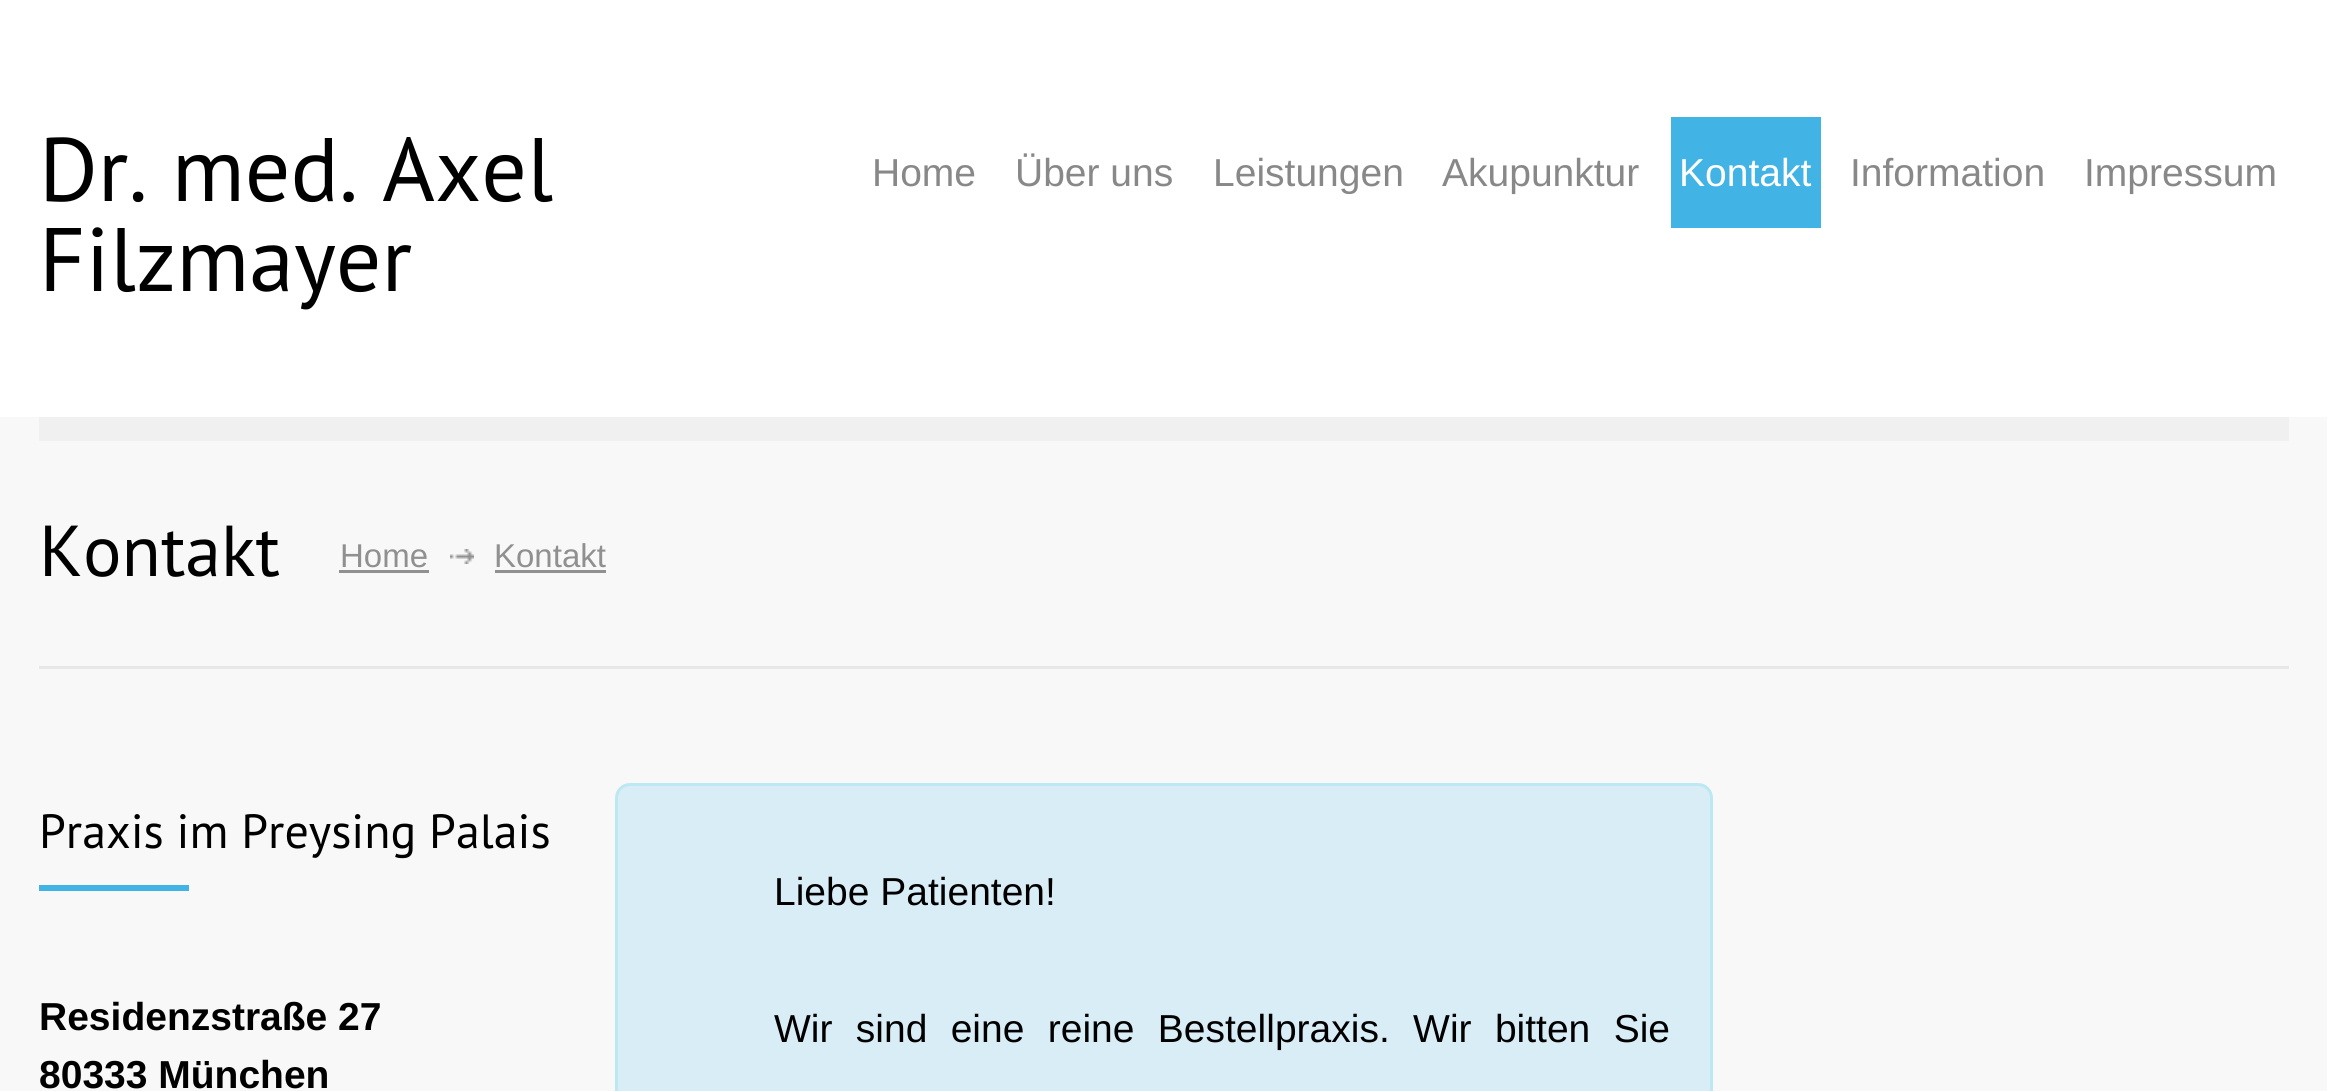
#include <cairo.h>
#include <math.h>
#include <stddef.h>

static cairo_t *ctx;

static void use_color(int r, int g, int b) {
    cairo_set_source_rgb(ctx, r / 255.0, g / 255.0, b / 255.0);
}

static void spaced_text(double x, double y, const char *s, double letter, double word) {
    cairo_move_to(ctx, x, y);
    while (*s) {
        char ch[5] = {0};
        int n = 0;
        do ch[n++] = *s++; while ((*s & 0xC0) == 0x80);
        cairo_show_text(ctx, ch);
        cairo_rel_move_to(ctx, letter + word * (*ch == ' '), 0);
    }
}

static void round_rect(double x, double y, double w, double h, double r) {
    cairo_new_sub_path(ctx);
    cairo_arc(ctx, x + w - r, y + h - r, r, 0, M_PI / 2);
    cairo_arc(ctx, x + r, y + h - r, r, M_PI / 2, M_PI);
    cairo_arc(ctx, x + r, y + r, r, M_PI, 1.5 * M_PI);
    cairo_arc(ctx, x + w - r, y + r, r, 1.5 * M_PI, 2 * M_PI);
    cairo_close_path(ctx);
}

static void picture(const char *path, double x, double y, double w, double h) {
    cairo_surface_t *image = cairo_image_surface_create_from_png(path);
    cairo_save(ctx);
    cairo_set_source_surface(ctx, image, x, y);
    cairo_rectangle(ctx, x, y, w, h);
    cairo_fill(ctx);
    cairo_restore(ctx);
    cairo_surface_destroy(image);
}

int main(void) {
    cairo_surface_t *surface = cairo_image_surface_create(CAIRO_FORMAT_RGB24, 2327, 1091);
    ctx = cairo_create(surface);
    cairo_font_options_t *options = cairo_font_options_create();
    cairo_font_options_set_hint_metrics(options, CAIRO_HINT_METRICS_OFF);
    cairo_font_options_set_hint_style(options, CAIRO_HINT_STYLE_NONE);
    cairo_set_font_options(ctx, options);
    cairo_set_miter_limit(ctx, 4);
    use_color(248, 248, 248);
    cairo_paint(ctx);
    use_color(255, 255, 255);
    cairo_rectangle(ctx, 0, 0, 2327, 417);
    cairo_fill(ctx);
    cairo_select_font_face(ctx, "PT Sans", CAIRO_FONT_SLANT_NORMAL, CAIRO_FONT_WEIGHT_NORMAL);
    cairo_set_font_size(ctx, 90);
    use_color(0, 0, 0);
    cairo_move_to(ctx, 39, 201);
    cairo_show_text(ctx, "Dr. med. Axel");
    cairo_move_to(ctx, 39, 291);
    cairo_show_text(ctx, "Filzmayer");
    cairo_select_font_face(ctx, "Liberation Sans", CAIRO_FONT_SLANT_NORMAL, CAIRO_FONT_WEIGHT_NORMAL);
    cairo_set_font_size(ctx, 39);
    use_color(136, 136, 136);
    cairo_move_to(ctx, 872, 186);
    cairo_show_text(ctx, "Home");
    cairo_move_to(ctx, 1015, 186);
    cairo_show_text(ctx, "Über uns");
    cairo_move_to(ctx, 1213, 186);
    cairo_show_text(ctx, "Leistungen");
    cairo_move_to(ctx, 1442, 186);
    cairo_show_text(ctx, "Akupunktur");
    use_color(66, 179, 229);
    cairo_rectangle(ctx, 1671, 117, 150, 111);
    cairo_fill(ctx);
    use_color(255, 255, 255);
    cairo_move_to(ctx, 1679, 186);
    cairo_show_text(ctx, "Kontakt");
    use_color(136, 136, 136);
    cairo_move_to(ctx, 1850, 186);
    cairo_show_text(ctx, "Information");
    cairo_move_to(ctx, 2084, 186);
    cairo_show_text(ctx, "Impressum");
    use_color(240, 240, 240);
    cairo_rectangle(ctx, 39, 417, 2250, 24);
    cairo_fill(ctx);
    use_color(232, 232, 232);
    cairo_rectangle(ctx, 39, 666, 2250, 3);
    cairo_fill(ctx);
    cairo_select_font_face(ctx, "PT Sans", CAIRO_FONT_SLANT_NORMAL, CAIRO_FONT_WEIGHT_NORMAL);
    cairo_set_font_size(ctx, 72);
    use_color(0, 0, 0);
    cairo_move_to(ctx, 39, 576);
    cairo_show_text(ctx, "Kontakt");
    cairo_select_font_face(ctx, "Liberation Sans", CAIRO_FONT_SLANT_NORMAL, CAIRO_FONT_WEIGHT_NORMAL);
    cairo_set_font_size(ctx, 33);
    use_color(144, 144, 144);
    cairo_move_to(ctx, 340, 567);
    cairo_show_text(ctx, "Home");
    cairo_rectangle(ctx, 339, 570, 90, 3);
    cairo_fill(ctx);
    picture("img1.png", 450, 549, 24, 15);
    cairo_move_to(ctx, 494, 567);
    cairo_show_text(ctx, "Kontakt");
    cairo_rectangle(ctx, 495, 570, 111, 3);
    cairo_fill(ctx);
    cairo_select_font_face(ctx, "PT Sans", CAIRO_FONT_SLANT_NORMAL, CAIRO_FONT_WEIGHT_NORMAL);
    cairo_set_font_size(ctx, 48);
    use_color(0, 0, 0);
    cairo_move_to(ctx, 39, 848);
    cairo_show_text(ctx, "Praxis im Preysing Palais");
    use_color(66, 179, 229);
    cairo_rectangle(ctx, 39, 885, 150, 6);
    cairo_fill(ctx);
    cairo_select_font_face(ctx, "Liberation Sans", CAIRO_FONT_SLANT_NORMAL, CAIRO_FONT_WEIGHT_BOLD);
    cairo_set_font_size(ctx, 39);
    use_color(0, 0, 0);
    cairo_move_to(ctx, 39, 1030);
    cairo_show_text(ctx, "Residenzstraße 27");
    cairo_move_to(ctx, 39, 1088);
    cairo_show_text(ctx, "80333 München");
    use_color(217, 237, 247);
    round_rect(616.5, 784.5, 1095, 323, 13.5);
    cairo_fill_preserve(ctx);
    use_color(188, 232, 241);
    cairo_set_line_width(ctx, 3);
    cairo_stroke(ctx);
    cairo_select_font_face(ctx, "Liberation Sans", CAIRO_FONT_SLANT_NORMAL, CAIRO_FONT_WEIGHT_NORMAL);
    use_color(0, 0, 0);
    cairo_move_to(ctx, 774, 905);
    cairo_show_text(ctx, "Liebe Patienten!");
    spaced_text(774, 1042, "Wir sind eine reine Bestellpraxis. Wir bitten Sie", 0, 12.5);
    cairo_surface_write_to_png(surface, "result.png");
    cairo_font_options_destroy(options);
    cairo_destroy(ctx);
    cairo_surface_destroy(surface);
    return 0;
}
